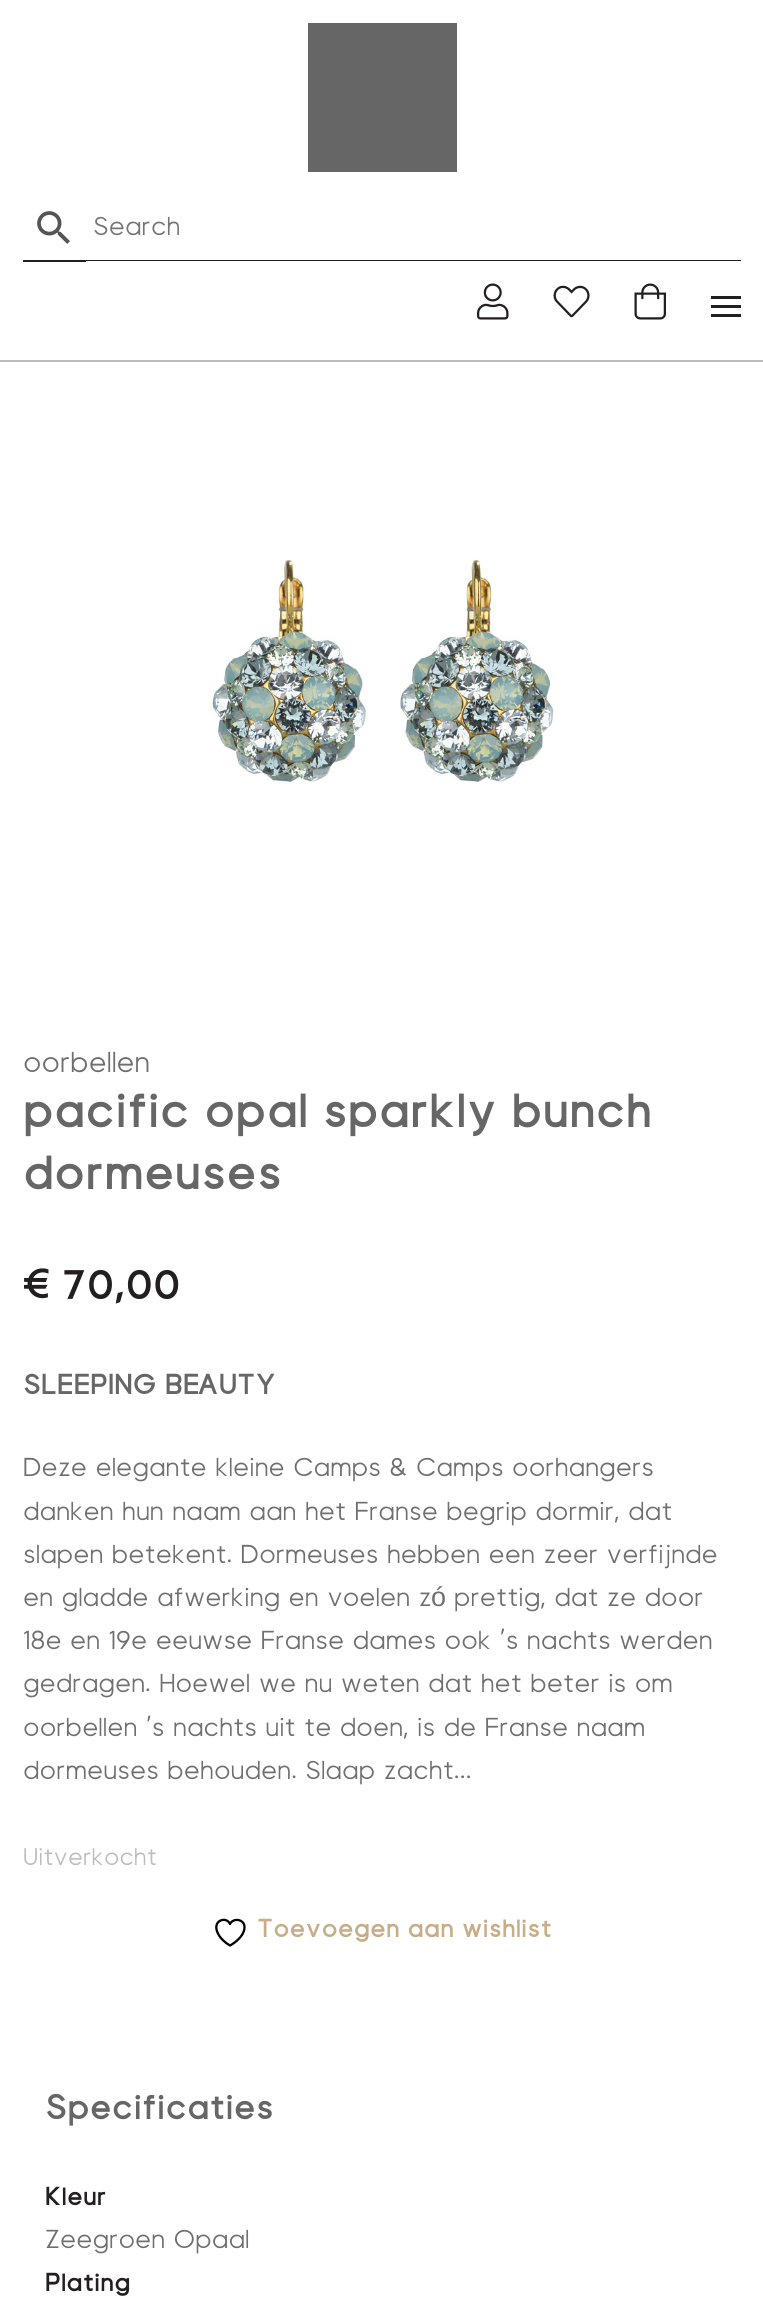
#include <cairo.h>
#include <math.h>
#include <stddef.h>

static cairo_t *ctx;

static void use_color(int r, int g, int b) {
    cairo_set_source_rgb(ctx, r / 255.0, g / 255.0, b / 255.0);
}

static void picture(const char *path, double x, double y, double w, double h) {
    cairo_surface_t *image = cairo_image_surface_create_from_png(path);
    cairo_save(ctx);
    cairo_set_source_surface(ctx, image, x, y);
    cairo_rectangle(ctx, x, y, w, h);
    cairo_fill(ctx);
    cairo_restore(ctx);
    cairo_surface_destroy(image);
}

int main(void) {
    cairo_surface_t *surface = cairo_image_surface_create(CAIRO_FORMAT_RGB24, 763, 2313);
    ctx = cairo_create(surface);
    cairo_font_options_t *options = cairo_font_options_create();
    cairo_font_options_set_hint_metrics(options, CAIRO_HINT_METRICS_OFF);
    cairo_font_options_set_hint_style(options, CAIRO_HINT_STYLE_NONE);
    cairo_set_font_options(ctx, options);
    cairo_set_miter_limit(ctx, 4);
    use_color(255, 255, 255);
    cairo_paint(ctx);
    use_color(189, 187, 187);
    cairo_rectangle(ctx, 0, 360, 763, 2);
    cairo_fill(ctx);
    use_color(102, 102, 102);
    cairo_rectangle(ctx, 308, 23, 149, 149);
    cairo_fill(ctx);
    use_color(35, 31, 32);
    cairo_rectangle(ctx, 23, 260, 63, 2);
    cairo_fill(ctx);
    picture("img1.png", 37, 211, 33, 33);
    cairo_rectangle(ctx, 84, 260, 657, 1);
    cairo_fill(ctx);
    cairo_select_font_face(ctx, "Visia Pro", CAIRO_FONT_SLANT_NORMAL, CAIRO_FONT_WEIGHT_NORMAL);
    cairo_set_font_size(ctx, 27);
    use_color(117, 117, 117);
    cairo_move_to(ctx, 93, 235);
    cairo_show_text(ctx, "Search");
    picture("img2.png", 477, 283, 32, 37);
    picture("img3.png", 553, 285, 37, 33);
    picture("img4.png", 634, 283, 32, 37);
    use_color(35, 31, 32);
    cairo_rectangle(ctx, 711, 296, 30, 3);
    cairo_fill(ctx);
    cairo_rectangle(ctx, 711, 305, 30, 3);
    cairo_fill(ctx);
    cairo_rectangle(ctx, 711, 314, 30, 3);
    cairo_fill(ctx);
    picture("img5.png", 211, 559, 343, 224);
    cairo_set_font_size(ctx, 30);
    use_color(112, 111, 111);
    cairo_move_to(ctx, 23, 1072);
    cairo_show_text(ctx, "oorbellen");
    cairo_select_font_face(ctx, "Visia Pro Black", CAIRO_FONT_SLANT_NORMAL, CAIRO_FONT_WEIGHT_NORMAL);
    cairo_set_font_size(ctx, 51.75);
    use_color(102, 102, 102);
    cairo_move_to(ctx, 23, 1127);
    cairo_show_text(ctx, "pacific opal sparkly bunch");
    cairo_move_to(ctx, 23, 1189);
    cairo_show_text(ctx, "dormeuses");
    cairo_set_font_size(ctx, 45);
    use_color(35, 31, 32);
    cairo_move_to(ctx, 23, 1299);
    cairo_show_text(ctx, "€ 70,00");
    cairo_set_font_size(ctx, 30);
    use_color(102, 102, 102);
    cairo_move_to(ctx, 23, 1394);
    cairo_show_text(ctx, "SLEEPING BEAUTY");
    cairo_select_font_face(ctx, "Visia Pro", CAIRO_FONT_SLANT_NORMAL, CAIRO_FONT_WEIGHT_NORMAL);
    cairo_set_font_size(ctx, 27);
    use_color(112, 111, 111);
    cairo_move_to(ctx, 23, 1476);
    cairo_show_text(ctx, "Deze elegante kleine Camps & Camps oorhangers");
    cairo_move_to(ctx, 23, 1520);
    cairo_show_text(ctx, "danken hun naam aan het Franse begrip dormir, dat");
    cairo_move_to(ctx, 23, 1563);
    cairo_show_text(ctx, "slapen betekent. Dormeuses hebben een zeer verfijnde");
    cairo_move_to(ctx, 23, 1606);
    cairo_show_text(ctx, "en gladde afwerking en voelen z");
    cairo_select_font_face(ctx, "Liberation Sans", CAIRO_FONT_SLANT_NORMAL, CAIRO_FONT_WEIGHT_NORMAL);
    cairo_move_to(ctx, 431, 1606);
    cairo_show_text(ctx, "ó");
    cairo_select_font_face(ctx, "Visia Pro", CAIRO_FONT_SLANT_NORMAL, CAIRO_FONT_WEIGHT_NORMAL);
    cairo_move_to(ctx, 454, 1606);
    cairo_show_text(ctx, "prettig, dat ze door");
    cairo_move_to(ctx, 23, 1649);
    cairo_show_text(ctx, "18e en 19e eeuwse Franse dames ook ’s nachts werden");
    cairo_move_to(ctx, 23, 1692);
    cairo_show_text(ctx, "gedragen. Hoewel we nu weten dat het beter is om");
    cairo_move_to(ctx, 23, 1736);
    cairo_show_text(ctx, "oorbellen ’s nachts uit te doen, is de Franse naam");
    cairo_move_to(ctx, 23, 1779);
    cairo_show_text(ctx, "dormeuses behouden. Slaap zacht…");
    cairo_set_font_size(ctx, 25);
    use_color(189, 187, 187);
    cairo_move_to(ctx, 23, 1865);
    cairo_show_text(ctx, "Uitverkocht");
    cairo_new_path(ctx);
    cairo_move_to(ctx, 244.5, 1927);
    cairo_curve_to(ctx, 244.5, 1919, 233, 1917.5, 230, 1924);
    cairo_curve_to(ctx, 226.5, 1915.5, 210.5, 1920.5, 218.5, 1934.5);
    cairo_curve_to(ctx, 221, 1939, 225.5, 1943, 230, 1945.5);
    cairo_curve_to(ctx, 230, 1945.5, 244.5, 1938, 244.5, 1927);
    cairo_close_path(ctx);
    use_color(0, 0, 0);
    cairo_set_line_width(ctx, 2.3);
    cairo_set_line_cap(ctx, CAIRO_LINE_CAP_ROUND);
    cairo_set_line_join(ctx, CAIRO_LINE_JOIN_ROUND);
    cairo_stroke(ctx);
    cairo_select_font_face(ctx, "Visia Pro Black", CAIRO_FONT_SLANT_NORMAL, CAIRO_FONT_WEIGHT_NORMAL);
    cairo_set_font_size(ctx, 27);
    use_color(199, 174, 135);
    cairo_move_to(ctx, 257, 1937);
    cairo_show_text(ctx, "Toevoegen aan wishlist");
    cairo_set_font_size(ctx, 37.25);
    use_color(102, 102, 102);
    cairo_move_to(ctx, 45, 2119);
    cairo_show_text(ctx, "Specificaties");
    cairo_set_font_size(ctx, 27);
    use_color(35, 31, 32);
    cairo_move_to(ctx, 45, 2205);
    cairo_show_text(ctx, "Kleur");
    cairo_select_font_face(ctx, "Visia Pro", CAIRO_FONT_SLANT_NORMAL, CAIRO_FONT_WEIGHT_NORMAL);
    use_color(112, 111, 111);
    cairo_move_to(ctx, 45, 2248);
    cairo_show_text(ctx, "Zeegroen Opaal");
    cairo_select_font_face(ctx, "Visia Pro Black", CAIRO_FONT_SLANT_NORMAL, CAIRO_FONT_WEIGHT_NORMAL);
    use_color(35, 31, 32);
    cairo_move_to(ctx, 45, 2291);
    cairo_show_text(ctx, "Plating");
    cairo_surface_write_to_png(surface, "result.png");
    cairo_font_options_destroy(options);
    cairo_destroy(ctx);
    cairo_surface_destroy(surface);
    return 0;
}
